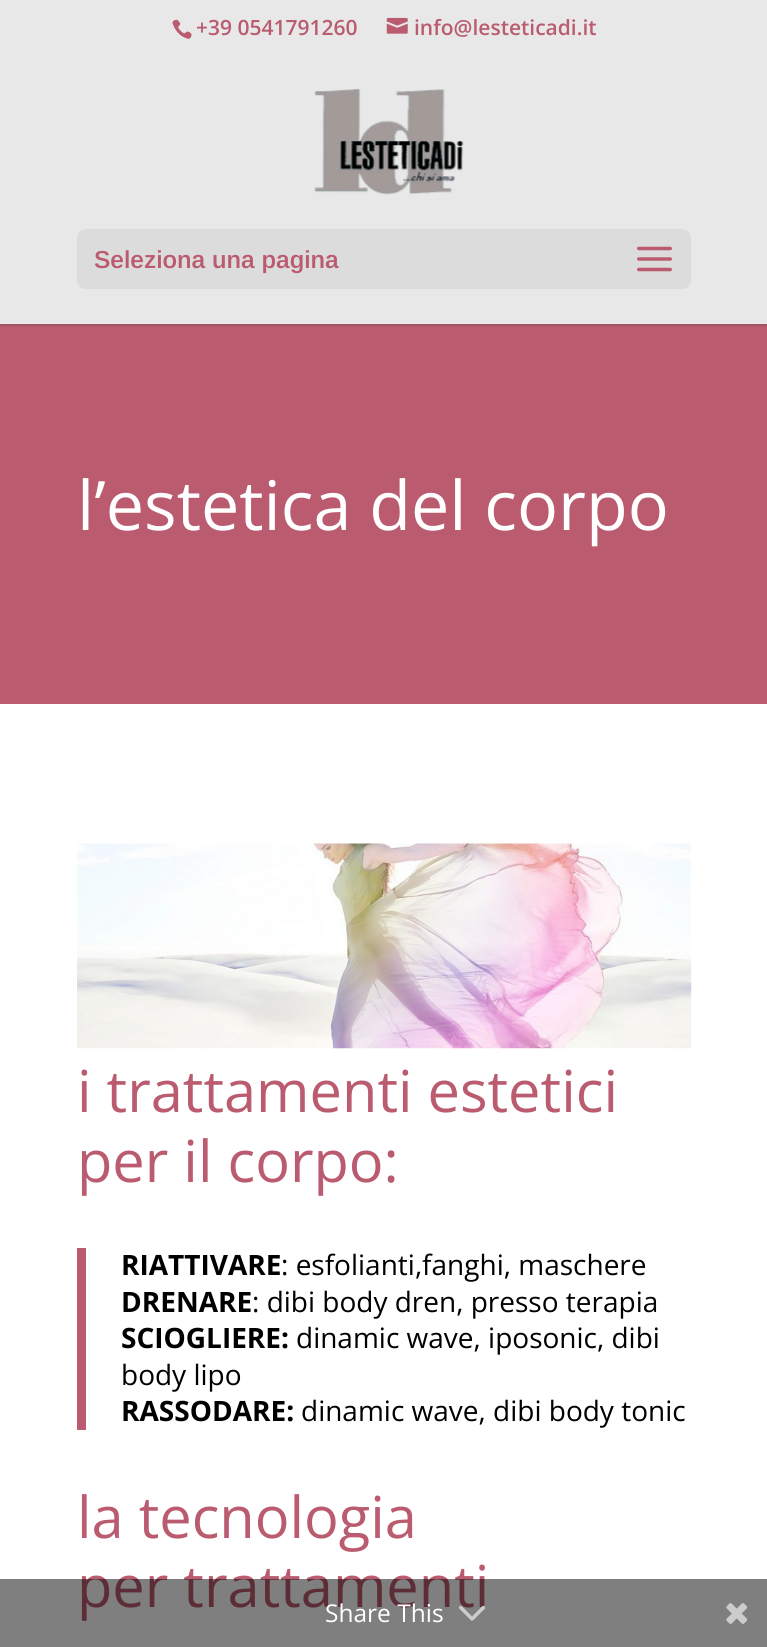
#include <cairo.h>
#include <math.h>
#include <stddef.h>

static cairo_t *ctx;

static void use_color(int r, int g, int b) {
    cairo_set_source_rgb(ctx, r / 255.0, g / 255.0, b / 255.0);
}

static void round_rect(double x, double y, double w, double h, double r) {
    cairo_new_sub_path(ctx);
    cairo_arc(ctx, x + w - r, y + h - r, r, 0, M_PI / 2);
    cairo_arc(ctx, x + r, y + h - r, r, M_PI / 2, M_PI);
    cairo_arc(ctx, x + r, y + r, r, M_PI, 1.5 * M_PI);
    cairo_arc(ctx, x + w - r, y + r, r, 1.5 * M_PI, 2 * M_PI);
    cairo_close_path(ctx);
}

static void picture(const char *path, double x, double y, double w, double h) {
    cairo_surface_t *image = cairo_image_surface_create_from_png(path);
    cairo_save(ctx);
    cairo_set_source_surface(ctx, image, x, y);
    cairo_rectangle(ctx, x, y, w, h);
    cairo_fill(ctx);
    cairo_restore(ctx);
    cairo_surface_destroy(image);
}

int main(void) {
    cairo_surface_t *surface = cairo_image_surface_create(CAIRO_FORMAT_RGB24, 767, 1647);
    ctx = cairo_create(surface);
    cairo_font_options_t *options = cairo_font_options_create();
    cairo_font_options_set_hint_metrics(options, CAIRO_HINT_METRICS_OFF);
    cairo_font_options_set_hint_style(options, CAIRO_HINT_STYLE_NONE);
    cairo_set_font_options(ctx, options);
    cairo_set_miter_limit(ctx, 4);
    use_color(232, 232, 232);
    cairo_paint(ctx);
    picture("img1.png", 172, 19, 20, 20);
    cairo_select_font_face(ctx, "Open Sans SemiBold", CAIRO_FONT_SLANT_NORMAL, CAIRO_FONT_WEIGHT_NORMAL);
    cairo_set_font_size(ctx, 21);
    use_color(186, 91, 111);
    cairo_move_to(ctx, 196, 35);
    cairo_show_text(ctx, "+39 0541791260");
    picture("img2.png", 386, 17, 22, 17);
    cairo_move_to(ctx, 414, 35);
    cairo_show_text(ctx, "info@lesteticadi.it");
    use_color(167, 82, 100);
    cairo_rectangle(ctx, 0, 324, 767, 2);
    cairo_fill(ctx);
    picture("img3.png", 314, 89, 150, 106);
    use_color(220, 220, 220);
    round_rect(77, 229, 614, 60, 9);
    cairo_fill(ctx);
    cairo_select_font_face(ctx, "Arimo SemiBold", CAIRO_FONT_SLANT_NORMAL, CAIRO_FONT_WEIGHT_NORMAL);
    cairo_set_font_size(ctx, 24.5);
    use_color(186, 91, 111);
    cairo_move_to(ctx, 94, 268);
    cairo_show_text(ctx, "Seleziona una pagina");
    picture("img4.png", 637, 246, 35, 26);
    cairo_rectangle(ctx, 0, 326, 767, 378);
    cairo_fill(ctx);
    cairo_select_font_face(ctx, "Open Sans", CAIRO_FONT_SLANT_NORMAL, CAIRO_FONT_WEIGHT_NORMAL);
    cairo_set_font_size(ctx, 68.25);
    use_color(255, 255, 255);
    cairo_move_to(ctx, 77, 530);
    cairo_show_text(ctx, "l’estetica del corpo");
    cairo_rectangle(ctx, 0, 704, 767, 943);
    cairo_fill(ctx);
    picture("img5.png", 77, 843, 615, 206);
    cairo_set_font_size(ctx, 57.75);
    use_color(186, 91, 111);
    cairo_move_to(ctx, 77, 1112);
    cairo_show_text(ctx, "i trattamenti estetici");
    cairo_move_to(ctx, 77, 1182);
    cairo_show_text(ctx, "per il corpo:");
    cairo_rectangle(ctx, 77, 1248, 9, 182);
    cairo_fill(ctx);
    cairo_select_font_face(ctx, "Open Sans", CAIRO_FONT_SLANT_NORMAL, CAIRO_FONT_WEIGHT_BOLD);
    cairo_set_font_size(ctx, 28);
    use_color(0, 0, 0);
    cairo_move_to(ctx, 121, 1275);
    cairo_show_text(ctx, "RIATTIVARE");
    cairo_select_font_face(ctx, "Open Sans", CAIRO_FONT_SLANT_NORMAL, CAIRO_FONT_WEIGHT_NORMAL);
    cairo_move_to(ctx, 281, 1275);
    cairo_show_text(ctx, ": esfolianti,fanghi, maschere");
    cairo_select_font_face(ctx, "Open Sans", CAIRO_FONT_SLANT_NORMAL, CAIRO_FONT_WEIGHT_BOLD);
    cairo_move_to(ctx, 121, 1312);
    cairo_show_text(ctx, "DRENARE");
    cairo_select_font_face(ctx, "Open Sans", CAIRO_FONT_SLANT_NORMAL, CAIRO_FONT_WEIGHT_NORMAL);
    cairo_move_to(ctx, 252, 1312);
    cairo_show_text(ctx, ": dibi body dren, presso terapia");
    cairo_select_font_face(ctx, "Open Sans", CAIRO_FONT_SLANT_NORMAL, CAIRO_FONT_WEIGHT_BOLD);
    cairo_move_to(ctx, 121, 1348);
    cairo_show_text(ctx, "SCIOGLIERE:");
    cairo_select_font_face(ctx, "Open Sans", CAIRO_FONT_SLANT_NORMAL, CAIRO_FONT_WEIGHT_NORMAL);
    cairo_move_to(ctx, 296, 1348);
    cairo_show_text(ctx, "dinamic wave, iposonic, dibi");
    cairo_move_to(ctx, 121, 1385);
    cairo_show_text(ctx, "body lipo");
    cairo_select_font_face(ctx, "Open Sans", CAIRO_FONT_SLANT_NORMAL, CAIRO_FONT_WEIGHT_BOLD);
    cairo_move_to(ctx, 121, 1421);
    cairo_show_text(ctx, "RASSODARE:");
    cairo_select_font_face(ctx, "Open Sans", CAIRO_FONT_SLANT_NORMAL, CAIRO_FONT_WEIGHT_NORMAL);
    cairo_move_to(ctx, 301, 1421);
    cairo_show_text(ctx, "dinamic wave, dibi body tonic");
    cairo_set_font_size(ctx, 57.75);
    use_color(186, 91, 111);
    cairo_move_to(ctx, 77, 1538);
    cairo_show_text(ctx, "la tecnologia");
    cairo_move_to(ctx, 77, 1607);
    cairo_show_text(ctx, "per trattamenti");
    cairo_set_source_rgba(ctx, 0, 0, 0, 0.5);
    cairo_rectangle(ctx, 0, 1579, 767, 68);
    cairo_fill(ctx);
    cairo_set_font_size(ctx, 24.5);
    use_color(255, 255, 255);
    cairo_move_to(ctx, 325, 1622);
    cairo_show_text(ctx, "Share This");
    picture("img6.png", 459, 1605, 27, 16);
    picture("img7.png", 726, 1603, 22, 21);
    cairo_surface_write_to_png(surface, "result.png");
    cairo_font_options_destroy(options);
    cairo_destroy(ctx);
    cairo_surface_destroy(surface);
    return 0;
}
